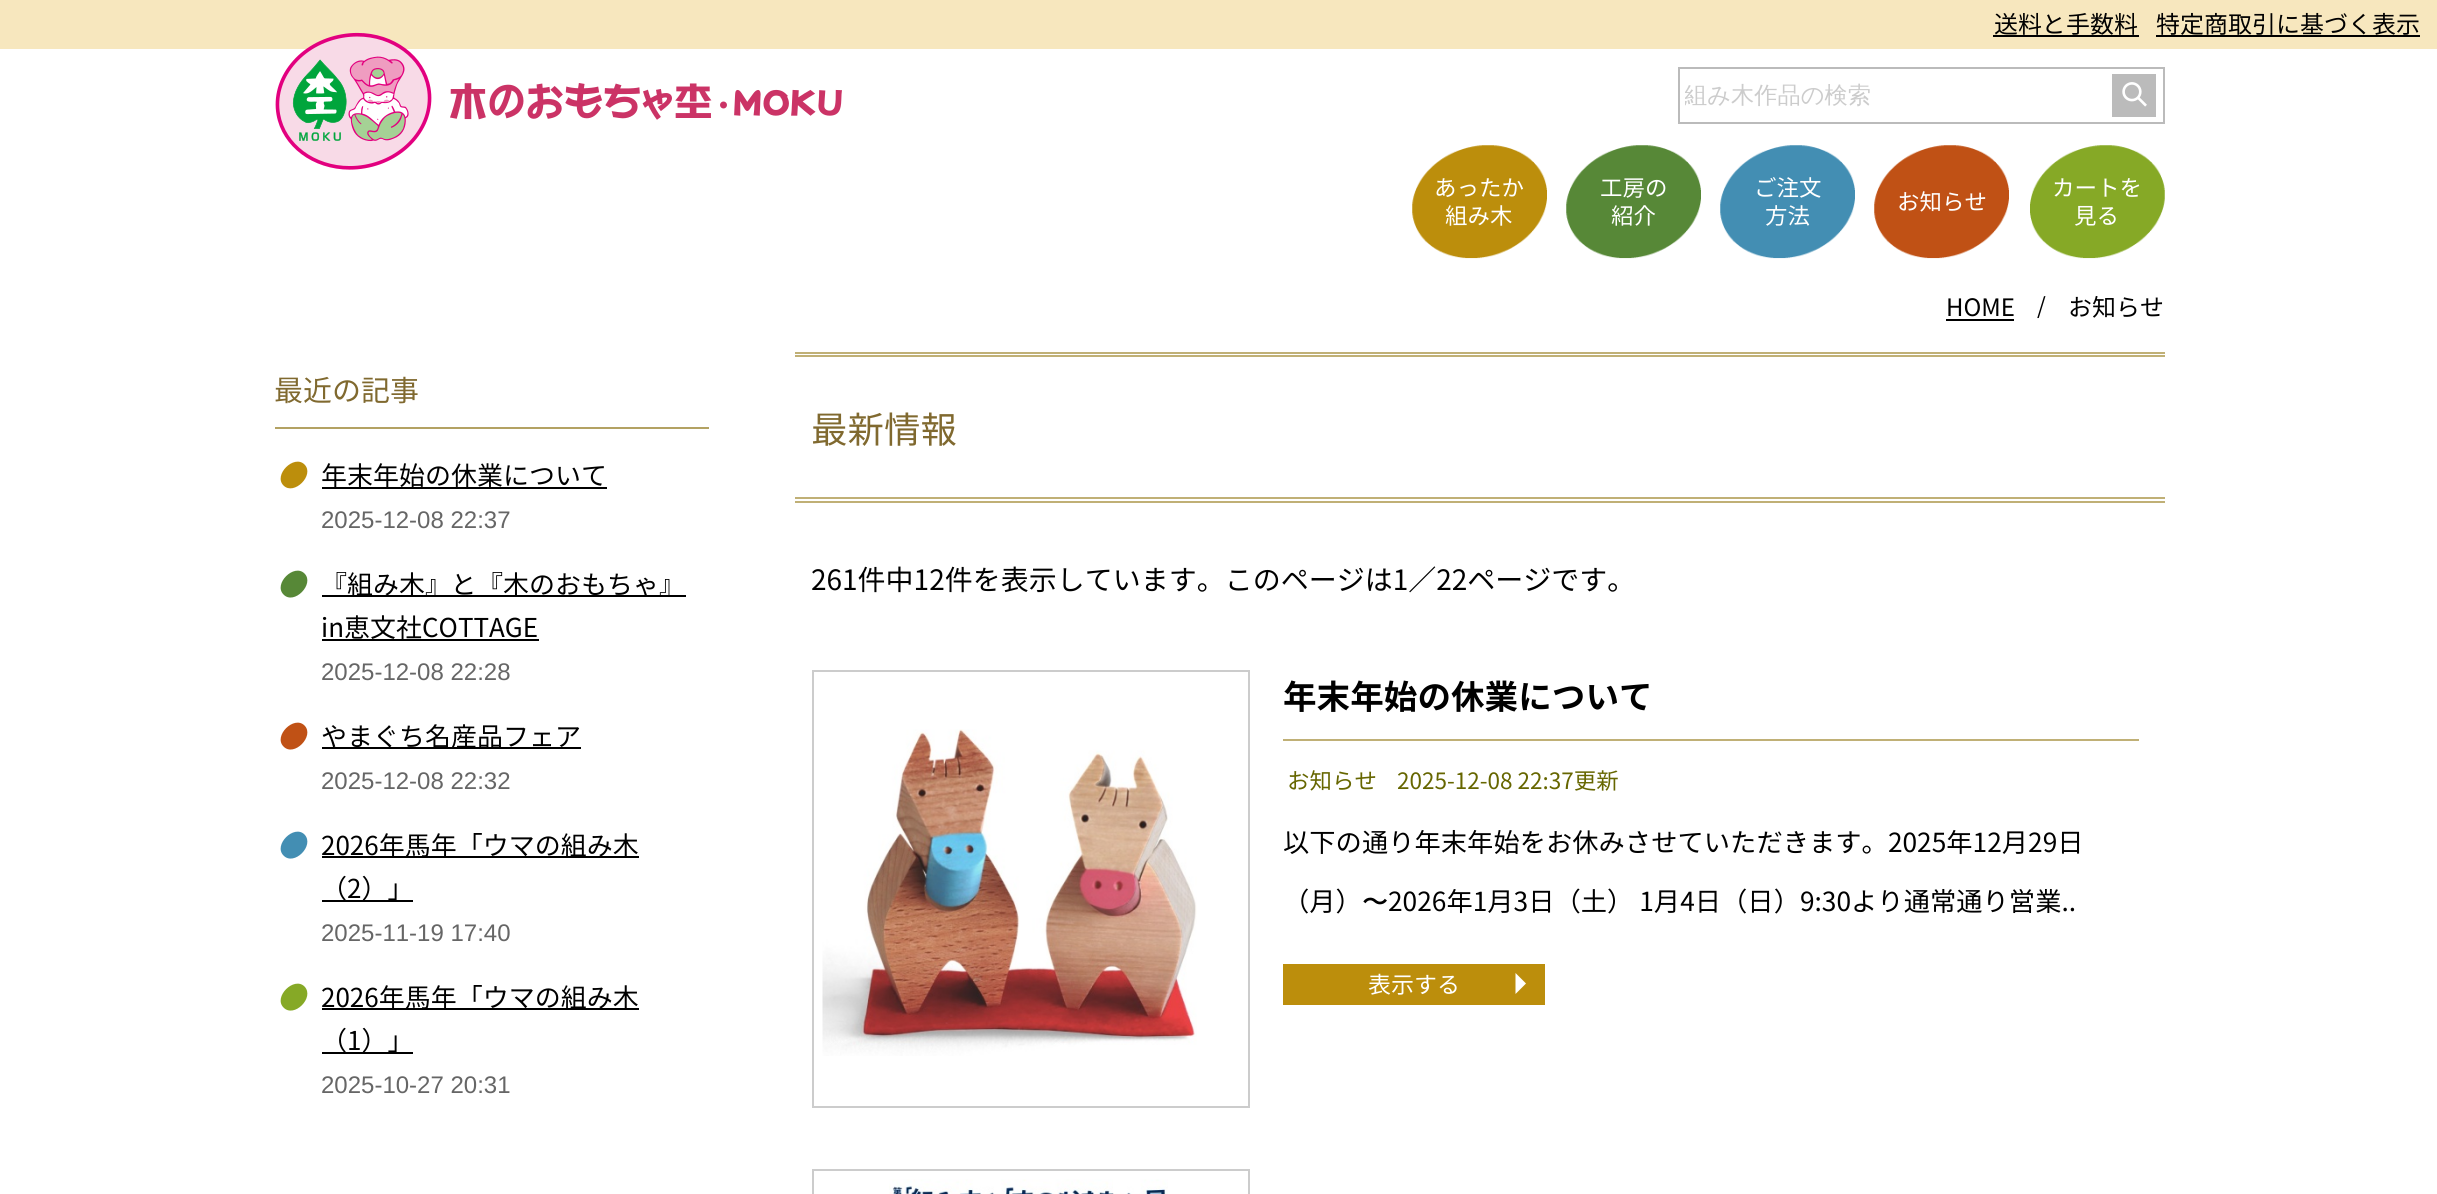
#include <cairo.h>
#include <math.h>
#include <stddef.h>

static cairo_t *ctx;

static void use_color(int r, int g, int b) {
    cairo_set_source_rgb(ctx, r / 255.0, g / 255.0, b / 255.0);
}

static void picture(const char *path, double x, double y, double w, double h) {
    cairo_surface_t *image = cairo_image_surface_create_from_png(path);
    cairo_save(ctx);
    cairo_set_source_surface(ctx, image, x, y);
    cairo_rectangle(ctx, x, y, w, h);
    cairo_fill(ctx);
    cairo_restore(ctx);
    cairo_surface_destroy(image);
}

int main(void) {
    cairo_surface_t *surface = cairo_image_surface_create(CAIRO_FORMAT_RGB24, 2437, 1194);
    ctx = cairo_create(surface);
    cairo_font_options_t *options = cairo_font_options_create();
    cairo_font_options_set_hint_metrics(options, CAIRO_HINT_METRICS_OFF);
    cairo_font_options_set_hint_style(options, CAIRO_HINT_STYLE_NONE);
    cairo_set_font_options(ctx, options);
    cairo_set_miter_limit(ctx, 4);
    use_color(255, 255, 255);
    cairo_paint(ctx);
    use_color(247, 231, 190);
    cairo_rectangle(ctx, 0, 0, 2437, 49);
    cairo_fill(ctx);
    cairo_select_font_face(ctx, "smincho", CAIRO_FONT_SLANT_NORMAL, CAIRO_FONT_WEIGHT_NORMAL);
    cairo_set_font_size(ctx, 24);
    use_color(0, 0, 0);
    cairo_move_to(ctx, 1994, 33);
    cairo_show_text(ctx, "送料と手数料");
    cairo_rectangle(ctx, 1993, 35, 146, 2);
    cairo_fill(ctx);
    cairo_move_to(ctx, 2156, 33);
    cairo_show_text(ctx, "特定商取引に基づく表示");
    cairo_rectangle(ctx, 2156, 35, 264, 2);
    cairo_fill(ctx);
    picture("img1.png", 275, 32, 157, 138);
    picture("img2.png", 450, 83, 392, 37);
    cairo_rectangle(ctx, 1679, 68, 485, 55);
    use_color(187, 187, 187);
    cairo_stroke(ctx);
    cairo_save(ctx);
    cairo_rectangle(ctx, 1685, 81, 420, 31);
    cairo_clip(ctx);
    cairo_select_font_face(ctx, "WenQuanYi Zen Hei Medium", CAIRO_FONT_SLANT_NORMAL, CAIRO_FONT_WEIGHT_NORMAL);
    cairo_set_font_size(ctx, 23.25);
    use_color(204, 204, 204);
    cairo_move_to(ctx, 1684, 103);
    cairo_show_text(ctx, "組み木作品の検索");
    cairo_restore(ctx);
    cairo_rectangle(ctx, 2112, 74, 44, 43);
    cairo_fill(ctx);
    picture("img3.png", 2122, 82, 25, 25);
    picture("img4.png", 1412, 145, 135, 114);
    cairo_set_font_size(ctx, 22.5);
    use_color(255, 255, 255);
    cairo_move_to(ctx, 1434, 196);
    cairo_show_text(ctx, "あったか");
    cairo_move_to(ctx, 1445, 224);
    cairo_show_text(ctx, "組み木");
    picture("img5.png", 1566, 145, 135, 114);
    cairo_move_to(ctx, 1600, 196);
    cairo_show_text(ctx, "工房の");
    cairo_move_to(ctx, 1611, 224);
    cairo_show_text(ctx, "紹介");
    picture("img6.png", 1720, 145, 135, 114);
    cairo_move_to(ctx, 1754, 196);
    cairo_show_text(ctx, "ご注文");
    cairo_move_to(ctx, 1765, 224);
    cairo_show_text(ctx, "方法");
    picture("img7.png", 1874, 145, 135, 114);
    cairo_move_to(ctx, 1897, 210);
    cairo_show_text(ctx, "お知らせ");
    picture("img8.png", 2030, 145, 135, 114);
    cairo_move_to(ctx, 2052, 196);
    cairo_show_text(ctx, "カートを");
    cairo_move_to(ctx, 2074, 224);
    cairo_show_text(ctx, "見る");
    cairo_set_font_size(ctx, 24);
    use_color(0, 0, 0);
    cairo_move_to(ctx, 1946, 316);
    cairo_show_text(ctx, "HOME");
    cairo_rectangle(ctx, 1946, 319, 68, 2);
    cairo_fill(ctx);
    cairo_set_font_size(ctx, 22.5);
    cairo_move_to(ctx, 2037, 314);
    cairo_show_text(ctx, "/");
    cairo_set_font_size(ctx, 24);
    cairo_move_to(ctx, 2068, 316);
    cairo_show_text(ctx, "お知らせ");
    use_color(179, 162, 99);
    cairo_rectangle(ctx, 275, 427, 434, 2);
    cairo_fill(ctx);
    cairo_set_font_size(ctx, 29);
    use_color(128, 105, 47);
    cairo_move_to(ctx, 274, 401);
    cairo_show_text(ctx, "最近の記事");
    use_color(188, 142, 12);
    cairo_new_path(ctx);
    cairo_move_to(ctx, 304.5, 464.5);
    cairo_curve_to(ctx, 315, 475, 294, 496, 283.5, 485.5);
    cairo_curve_to(ctx, 273, 475, 294, 454, 304.5, 464.5);
    cairo_close_path(ctx);
    cairo_fill(ctx);
    use_color(0, 0, 0);
    cairo_rectangle(ctx, 322, 487, 285, 2);
    cairo_fill(ctx);
    cairo_set_font_size(ctx, 26);
    cairo_move_to(ctx, 321, 485);
    cairo_show_text(ctx, "年末年始の休業について");
    cairo_select_font_face(ctx, "Liberation Sans", CAIRO_FONT_SLANT_NORMAL, CAIRO_FONT_WEIGHT_NORMAL);
    cairo_set_font_size(ctx, 24);
    use_color(102, 102, 102);
    cairo_move_to(ctx, 321, 528);
    cairo_show_text(ctx, "2025-12-08 22:37");
    use_color(87, 136, 55);
    cairo_new_path(ctx);
    cairo_move_to(ctx, 304.5, 573.5);
    cairo_curve_to(ctx, 315, 584, 294, 605.5, 283.5, 594.5);
    cairo_curve_to(ctx, 273, 584, 294, 563, 304.5, 573.5);
    cairo_close_path(ctx);
    cairo_fill(ctx);
    use_color(0, 0, 0);
    cairo_rectangle(ctx, 322, 595, 364, 2);
    cairo_fill(ctx);
    cairo_select_font_face(ctx, "smincho", CAIRO_FONT_SLANT_NORMAL, CAIRO_FONT_WEIGHT_NORMAL);
    cairo_set_font_size(ctx, 26);
    cairo_move_to(ctx, 321, 594);
    cairo_show_text(ctx, "『組み木』と『木のおもちゃ』");
    cairo_move_to(ctx, 321, 637);
    cairo_show_text(ctx, "in恵文社COTTAGE");
    cairo_rectangle(ctx, 322, 639, 217, 2);
    cairo_fill(ctx);
    cairo_select_font_face(ctx, "Liberation Sans", CAIRO_FONT_SLANT_NORMAL, CAIRO_FONT_WEIGHT_NORMAL);
    cairo_set_font_size(ctx, 24);
    use_color(102, 102, 102);
    cairo_move_to(ctx, 321, 680);
    cairo_show_text(ctx, "2025-12-08 22:28");
    use_color(192, 81, 21);
    cairo_new_path(ctx);
    cairo_move_to(ctx, 304.5, 725.5);
    cairo_curve_to(ctx, 315, 736, 294, 757.5, 283.5, 746.5);
    cairo_curve_to(ctx, 273, 736, 294, 715, 304.5, 725.5);
    cairo_close_path(ctx);
    cairo_fill(ctx);
    use_color(0, 0, 0);
    cairo_rectangle(ctx, 322, 747, 259, 2);
    cairo_fill(ctx);
    cairo_select_font_face(ctx, "smincho", CAIRO_FONT_SLANT_NORMAL, CAIRO_FONT_WEIGHT_NORMAL);
    cairo_set_font_size(ctx, 26);
    cairo_move_to(ctx, 321, 746);
    cairo_show_text(ctx, "やまぐち名産品フェア");
    cairo_select_font_face(ctx, "Liberation Sans", CAIRO_FONT_SLANT_NORMAL, CAIRO_FONT_WEIGHT_NORMAL);
    cairo_set_font_size(ctx, 24);
    use_color(102, 102, 102);
    cairo_move_to(ctx, 321, 789);
    cairo_show_text(ctx, "2025-12-08 22:32");
    use_color(67, 142, 179);
    cairo_new_path(ctx);
    cairo_move_to(ctx, 304.5, 834.5);
    cairo_curve_to(ctx, 315, 845.5, 294, 866.5, 283.5, 855.5);
    cairo_curve_to(ctx, 273, 845, 294, 824, 304.5, 834.5);
    cairo_close_path(ctx);
    cairo_fill(ctx);
    use_color(0, 0, 0);
    cairo_rectangle(ctx, 322, 856, 317, 2);
    cairo_fill(ctx);
    cairo_select_font_face(ctx, "smincho", CAIRO_FONT_SLANT_NORMAL, CAIRO_FONT_WEIGHT_NORMAL);
    cairo_set_font_size(ctx, 26);
    cairo_move_to(ctx, 321, 855);
    cairo_show_text(ctx, "2026年馬年「ウマの組み木");
    cairo_rectangle(ctx, 322, 900, 91, 2);
    cairo_fill(ctx);
    cairo_move_to(ctx, 321, 898);
    cairo_show_text(ctx, "（2）」");
    cairo_select_font_face(ctx, "Liberation Sans", CAIRO_FONT_SLANT_NORMAL, CAIRO_FONT_WEIGHT_NORMAL);
    cairo_set_font_size(ctx, 24);
    use_color(102, 102, 102);
    cairo_move_to(ctx, 321, 941);
    cairo_show_text(ctx, "2025-11-19 17:40");
    use_color(134, 169, 38);
    cairo_new_path(ctx);
    cairo_move_to(ctx, 304.5, 986.5);
    cairo_curve_to(ctx, 315, 997.5, 294, 1018.5, 283.5, 1007.5);
    cairo_curve_to(ctx, 273, 997, 294, 976, 304.5, 986.5);
    cairo_close_path(ctx);
    cairo_fill(ctx);
    use_color(0, 0, 0);
    cairo_rectangle(ctx, 322, 1008, 317, 2);
    cairo_fill(ctx);
    cairo_select_font_face(ctx, "smincho", CAIRO_FONT_SLANT_NORMAL, CAIRO_FONT_WEIGHT_NORMAL);
    cairo_set_font_size(ctx, 26);
    cairo_move_to(ctx, 321, 1007);
    cairo_show_text(ctx, "2026年馬年「ウマの組み木");
    cairo_rectangle(ctx, 322, 1052, 91, 2);
    cairo_fill(ctx);
    cairo_move_to(ctx, 321, 1050);
    cairo_show_text(ctx, "（1）」");
    cairo_select_font_face(ctx, "Liberation Sans", CAIRO_FONT_SLANT_NORMAL, CAIRO_FONT_WEIGHT_NORMAL);
    cairo_set_font_size(ctx, 24);
    use_color(102, 102, 102);
    cairo_move_to(ctx, 321, 1093);
    cairo_show_text(ctx, "2025-10-27 20:31");
    use_color(192, 176, 118);
    cairo_rectangle(ctx, 795, 352, 1370, 2);
    cairo_fill(ctx);
    cairo_rectangle(ctx, 795, 355, 1370, 2);
    cairo_fill(ctx);
    cairo_rectangle(ctx, 795, 497, 1370, 2);
    cairo_fill(ctx);
    cairo_rectangle(ctx, 795, 501, 1370, 2);
    cairo_fill(ctx);
    cairo_select_font_face(ctx, "smincho", CAIRO_FONT_SLANT_NORMAL, CAIRO_FONT_WEIGHT_NORMAL);
    cairo_set_font_size(ctx, 36.5);
    use_color(128, 105, 47);
    cairo_move_to(ctx, 811, 443);
    cairo_show_text(ctx, "最新情報");
    cairo_set_font_size(ctx, 28);
    use_color(0, 0, 0);
    cairo_move_to(ctx, 811, 590);
    cairo_show_text(ctx, "261件中12件を表示しています。このページは1／22ページです。");
    cairo_rectangle(ctx, 813, 671, 436, 436);
    use_color(204, 204, 204);
    cairo_stroke(ctx);
    picture("img9.png", 822, 729, 375, 327);
    use_color(192, 176, 118);
    cairo_rectangle(ctx, 1283, 739, 856, 2);
    cairo_fill(ctx);
    cairo_select_font_face(ctx, "smincho", CAIRO_FONT_SLANT_NORMAL, CAIRO_FONT_WEIGHT_BOLD);
    cairo_set_font_size(ctx, 33.6);
    use_color(0, 0, 0);
    cairo_move_to(ctx, 1283, 709);
    cairo_show_text(ctx, "年末年始の休業について");
    cairo_select_font_face(ctx, "smincho", CAIRO_FONT_SLANT_NORMAL, CAIRO_FONT_WEIGHT_NORMAL);
    cairo_set_font_size(ctx, 22.5);
    use_color(102, 102, 0);
    cairo_move_to(ctx, 1287, 789);
    cairo_show_text(ctx, "お知らせ");
    cairo_move_to(ctx, 1397, 789);
    cairo_show_text(ctx, "2025-12-08 22:37更新");
    cairo_set_font_size(ctx, 26.3);
    use_color(0, 0, 0);
    cairo_move_to(ctx, 1283, 852);
    cairo_show_text(ctx, "以下の通り年末年始をお休みさせていただきます。2025年12月29日");
    cairo_move_to(ctx, 1283, 911);
    cairo_show_text(ctx, "（月）");
    cairo_select_font_face(ctx, "WenQuanYi Zen Hei Medium", CAIRO_FONT_SLANT_NORMAL, CAIRO_FONT_WEIGHT_NORMAL);
    cairo_move_to(ctx, 1362, 911);
    cairo_show_text(ctx, "〜");
    cairo_select_font_face(ctx, "smincho", CAIRO_FONT_SLANT_NORMAL, CAIRO_FONT_WEIGHT_NORMAL);
    cairo_move_to(ctx, 1388, 911);
    cairo_show_text(ctx, "2026年1月3日（土） 1月4日（日）9:30より通常通り営業..");
    use_color(188, 142, 12);
    cairo_rectangle(ctx, 1283, 964, 262, 41);
    cairo_fill(ctx);
    cairo_set_font_size(ctx, 23);
    use_color(255, 255, 255);
    cairo_move_to(ctx, 1368, 993);
    cairo_show_text(ctx, "表示する");
    cairo_new_path(ctx);
    cairo_move_to(ctx, 1515.5, 994);
    cairo_line_to(ctx, 1515.5, 973);
    cairo_line_to(ctx, 1526, 983.5);
    cairo_close_path(ctx);
    cairo_fill(ctx);
    cairo_rectangle(ctx, 813, 1170, 436, 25);
    use_color(204, 204, 204);
    cairo_stroke(ctx);
    picture("img10.png", 889, 1179, 279, 15);
    cairo_surface_write_to_png(surface, "result.png");
    cairo_font_options_destroy(options);
    cairo_destroy(ctx);
    cairo_surface_destroy(surface);
    return 0;
}
